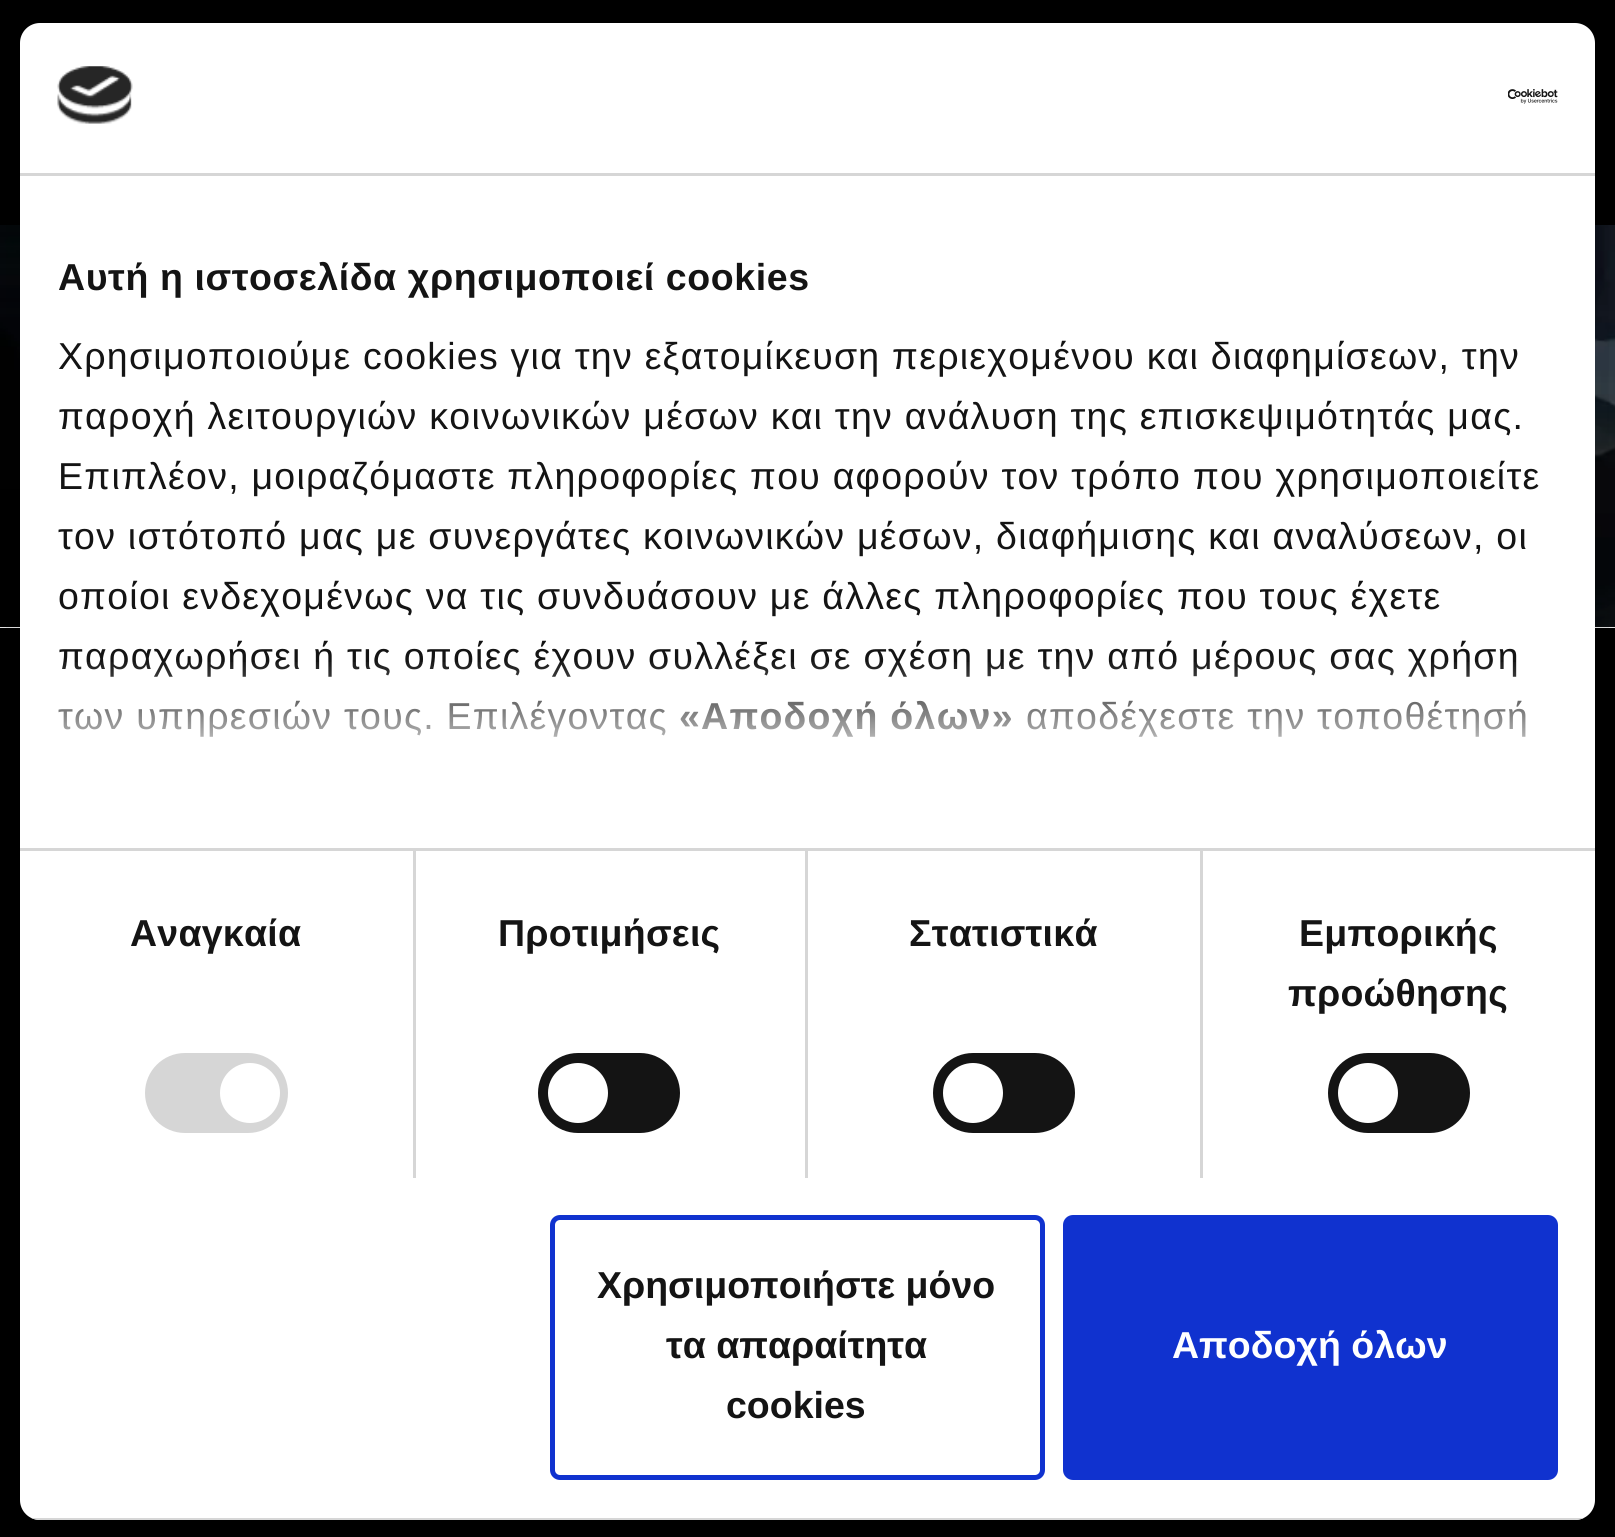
#include <cairo.h>
#include <math.h>
#include <stddef.h>

static cairo_t *ctx;

static void use_color(int r, int g, int b) {
    cairo_set_source_rgb(ctx, r / 255.0, g / 255.0, b / 255.0);
}

static void spaced_text(double x, double y, const char *s, double letter, double word) {
    cairo_move_to(ctx, x, y);
    while (*s) {
        char ch[5] = {0};
        int n = 0;
        do ch[n++] = *s++; while ((*s & 0xC0) == 0x80);
        cairo_show_text(ctx, ch);
        cairo_rel_move_to(ctx, letter + word * (*ch == ' '), 0);
    }
}

static void round_rect(double x, double y, double w, double h, double r) {
    cairo_new_sub_path(ctx);
    cairo_arc(ctx, x + w - r, y + h - r, r, 0, M_PI / 2);
    cairo_arc(ctx, x + r, y + h - r, r, M_PI / 2, M_PI);
    cairo_arc(ctx, x + r, y + r, r, M_PI, 1.5 * M_PI);
    cairo_arc(ctx, x + w - r, y + r, r, 1.5 * M_PI, 2 * M_PI);
    cairo_close_path(ctx);
}

static void shadow(double x, double y, double w, double h, double r, double blur, double alpha) {
    cairo_push_group_with_content(ctx, CAIRO_CONTENT_ALPHA);
    cairo_set_operator(ctx, CAIRO_OPERATOR_SOURCE);
    for (int i = 15; i >= -15 && fmin(w, h) + blur * i / 3 > 0; i -= 2) {
        double e = blur * i / 6;
        cairo_set_source_rgba(ctx, 0, 0, 0, alpha * erfc((i - 1) / 8.5) / 2);
        round_rect(x - e, y - e, w + 2 * e, h + 2 * e, fmax(0, fmin(r + e + blur * .6, fmin(w, h) / 2 + e)));
        cairo_fill(ctx);
    }
    cairo_pattern_t *soft = cairo_pop_group(ctx);
    cairo_mask(ctx, soft);
    cairo_pattern_destroy(soft);
}

static void picture(const char *path, double x, double y, double w, double h) {
    cairo_surface_t *image = cairo_image_surface_create_from_png(path);
    cairo_save(ctx);
    cairo_set_source_surface(ctx, image, x, y);
    cairo_rectangle(ctx, x, y, w, h);
    cairo_fill(ctx);
    cairo_restore(ctx);
    cairo_surface_destroy(image);
}

int main(void) {
    cairo_surface_t *surface = cairo_image_surface_create(CAIRO_FORMAT_RGB24, 1615, 1537);
    ctx = cairo_create(surface);
    cairo_font_options_t *options = cairo_font_options_create();
    cairo_font_options_set_hint_metrics(options, CAIRO_HINT_METRICS_OFF);
    cairo_font_options_set_hint_style(options, CAIRO_HINT_STYLE_NONE);
    cairo_set_font_options(ctx, options);
    cairo_set_miter_limit(ctx, 4);
    cairo_pattern_t *gradient;
    use_color(255, 255, 255);
    cairo_paint(ctx);
    use_color(0, 0, 0);
    cairo_rectangle(ctx, 0, 0, 1615, 225);
    cairo_fill(ctx);
    picture("img1.png", 0, 225, 1615, 402);
    cairo_rectangle(ctx, 0, 628, 1615, 909);
    cairo_fill(ctx);
    cairo_save(ctx);
    cairo_set_fill_rule(ctx, CAIRO_FILL_RULE_EVEN_ODD);
    cairo_new_path(ctx);
    cairo_move_to(ctx, 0, 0);
    cairo_line_to(ctx, 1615, 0);
    cairo_line_to(ctx, 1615, 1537);
    cairo_line_to(ctx, 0, 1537);
    cairo_close_path(ctx);
    cairo_move_to(ctx, 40, 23);
    cairo_line_to(ctx, 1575, 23);
    cairo_curve_to(ctx, 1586, 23, 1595, 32, 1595, 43);
    cairo_line_to(ctx, 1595, 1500);
    cairo_curve_to(ctx, 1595, 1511, 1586, 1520, 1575, 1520);
    cairo_line_to(ctx, 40, 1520);
    cairo_curve_to(ctx, 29, 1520, 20, 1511, 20, 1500);
    cairo_line_to(ctx, 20, 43);
    cairo_curve_to(ctx, 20, 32, 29, 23, 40, 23);
    cairo_close_path(ctx);
    cairo_clip(ctx);
    use_color(0, 0, 0);
    shadow(20, 103, 1575, 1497, 20, 85, 0.3);
    cairo_restore(ctx);
    use_color(255, 255, 255);
    round_rect(20, 23, 1575, 1497, 20);
    cairo_fill(ctx);
    use_color(214, 214, 214);
    cairo_rectangle(ctx, 20, 173, 1575, 3);
    cairo_fill(ctx);
    picture("img2.png", 57, 66, 76, 58);
    picture("img3.png", 1508, 89, 50, 15);
    cairo_rectangle(ctx, 413, 850, 3, 328);
    cairo_fill(ctx);
    cairo_rectangle(ctx, 805, 850, 3, 328);
    cairo_fill(ctx);
    cairo_rectangle(ctx, 1200, 850, 3, 328);
    cairo_fill(ctx);
    cairo_rectangle(ctx, 20, 848, 1575, 3);
    cairo_fill(ctx);
    cairo_select_font_face(ctx, "Liberation Sans", CAIRO_FONT_SLANT_NORMAL, CAIRO_FONT_WEIGHT_BOLD);
    cairo_set_font_size(ctx, 37.5);
    use_color(20, 20, 20);
    spaced_text(58, 290, "Αυτή η ιστοσελίδα χρησιμοποιεί cookies", 0.6, 0);
    cairo_select_font_face(ctx, "Liberation Sans", CAIRO_FONT_SLANT_NORMAL, CAIRO_FONT_WEIGHT_NORMAL);
    spaced_text(58, 369, "Χρησιμοποιούμε cookies για την εξατομίκευση περιεχομένου και διαφημίσεων, την", 1.25, 0);
    spaced_text(58, 429, "παροχή λειτουργιών κοινωνικών μέσων και την ανάλυση της επισκεψιμότητάς μας.", 1.25, 0);
    spaced_text(58, 489, "Επιπλέον, μοιραζόμαστε πληροφορίες που αφορούν τον τρόπο που χρησιμοποιείτε", 1.25, 0);
    spaced_text(58, 549, "τον ιστότοπό μας με συνεργάτες κοινωνικών μέσων, διαφήμισης και αναλύσεων, οι", 1.25, 0);
    spaced_text(58, 609, "οποίοι ενδεχομένως να τις συνδυάσουν με άλλες πληροφορίες που τους έχετε", 1.25, 0);
    spaced_text(58, 669, "παραχωρήσει ή τις οποίες έχουν συλλέξει σε σχέση με την από μέρους σας χρήση", 1.25, 0);
    spaced_text(58, 729, "των υπηρεσιών τους. Επιλέγοντας", 1.25, 0);
    cairo_select_font_face(ctx, "Liberation Sans", CAIRO_FONT_SLANT_NORMAL, CAIRO_FONT_WEIGHT_BOLD);
    spaced_text(679, 729, "«Αποδοχή όλων»", 1.25, 0);
    cairo_select_font_face(ctx, "Liberation Sans", CAIRO_FONT_SLANT_NORMAL, CAIRO_FONT_WEIGHT_NORMAL);
    spaced_text(1026, 729, "αποδέχεστε την τοποθέτησή", 1.25, 0);
    gradient = cairo_pattern_create_linear(791, 846, 791, 659);
    cairo_pattern_add_color_stop_rgba(gradient, 0, 1, 1, 1, 1);
    cairo_pattern_add_color_stop_rgba(gradient, 0.5, 1, 1, 1, 0.8);
    cairo_pattern_add_color_stop_rgba(gradient, 1, 1, 1, 1, 0);
    cairo_set_source(ctx, gradient);
    cairo_pattern_destroy(gradient);
    cairo_rectangle(ctx, 58, 662, 1468, 75);
    cairo_fill(ctx);
    cairo_select_font_face(ctx, "Liberation Sans", CAIRO_FONT_SLANT_NORMAL, CAIRO_FONT_WEIGHT_BOLD);
    use_color(20, 20, 20);
    spaced_text(130, 946, "Αναγκαία", 0.25, 0);
    use_color(214, 214, 214);
    round_rect(145, 1053, 143, 80, 40);
    cairo_fill(ctx);
    use_color(255, 255, 255);
    cairo_arc(ctx, 250, 1093, 30, 0, 2 * M_PI);
    cairo_fill(ctx);
    use_color(20, 20, 20);
    spaced_text(498, 946, "Προτιμήσεις", 0.25, 0);
    round_rect(538, 1053, 142, 80, 40);
    cairo_fill(ctx);
    use_color(255, 255, 255);
    cairo_arc(ctx, 578, 1093, 30, 0, 2 * M_PI);
    cairo_fill(ctx);
    use_color(20, 20, 20);
    spaced_text(909, 946, "Στατιστικά", 0.25, 0);
    round_rect(933, 1053, 142, 80, 40);
    cairo_fill(ctx);
    use_color(255, 255, 255);
    cairo_arc(ctx, 973, 1093, 30, 0, 2 * M_PI);
    cairo_fill(ctx);
    use_color(20, 20, 20);
    spaced_text(1299, 946, "Εμπορικής", 0.25, 0);
    spaced_text(1288, 1006, "προώθησης", 0.25, 0);
    round_rect(1328, 1053, 142, 80, 40);
    cairo_fill(ctx);
    use_color(255, 255, 255);
    cairo_arc(ctx, 1368, 1093, 30, 0, 2 * M_PI);
    cairo_fill(ctx);
    cairo_save(ctx);
    round_rect(20, 23, 1575, 1497, 20);
    cairo_clip(ctx);
    use_color(214, 214, 214);
    cairo_rectangle(ctx, 31, 1518, 1553, 2);
    cairo_fill(ctx);
    cairo_restore(ctx);
    round_rect(552.5, 1217.5, 490, 260, 7.5);
    use_color(16, 50, 207);
    cairo_set_line_width(ctx, 5);
    cairo_stroke(ctx);
    use_color(20, 20, 20);
    cairo_move_to(ctx, 597, 1298);
    cairo_show_text(ctx, "Χρησιμοποιήστε μόνο");
    cairo_move_to(ctx, 666, 1358);
    cairo_show_text(ctx, "τα απαραίτητα");
    cairo_move_to(ctx, 726, 1418);
    cairo_show_text(ctx, "cookies");
    use_color(16, 50, 207);
    round_rect(1065.5, 1217.5, 490, 260, 7.5);
    cairo_fill_preserve(ctx);
    cairo_stroke(ctx);
    use_color(255, 255, 255);
    cairo_move_to(ctx, 1172, 1358);
    cairo_show_text(ctx, "Αποδοχή όλων");
    cairo_surface_write_to_png(surface, "result.png");
    cairo_font_options_destroy(options);
    cairo_destroy(ctx);
    cairo_surface_destroy(surface);
    return 0;
}
